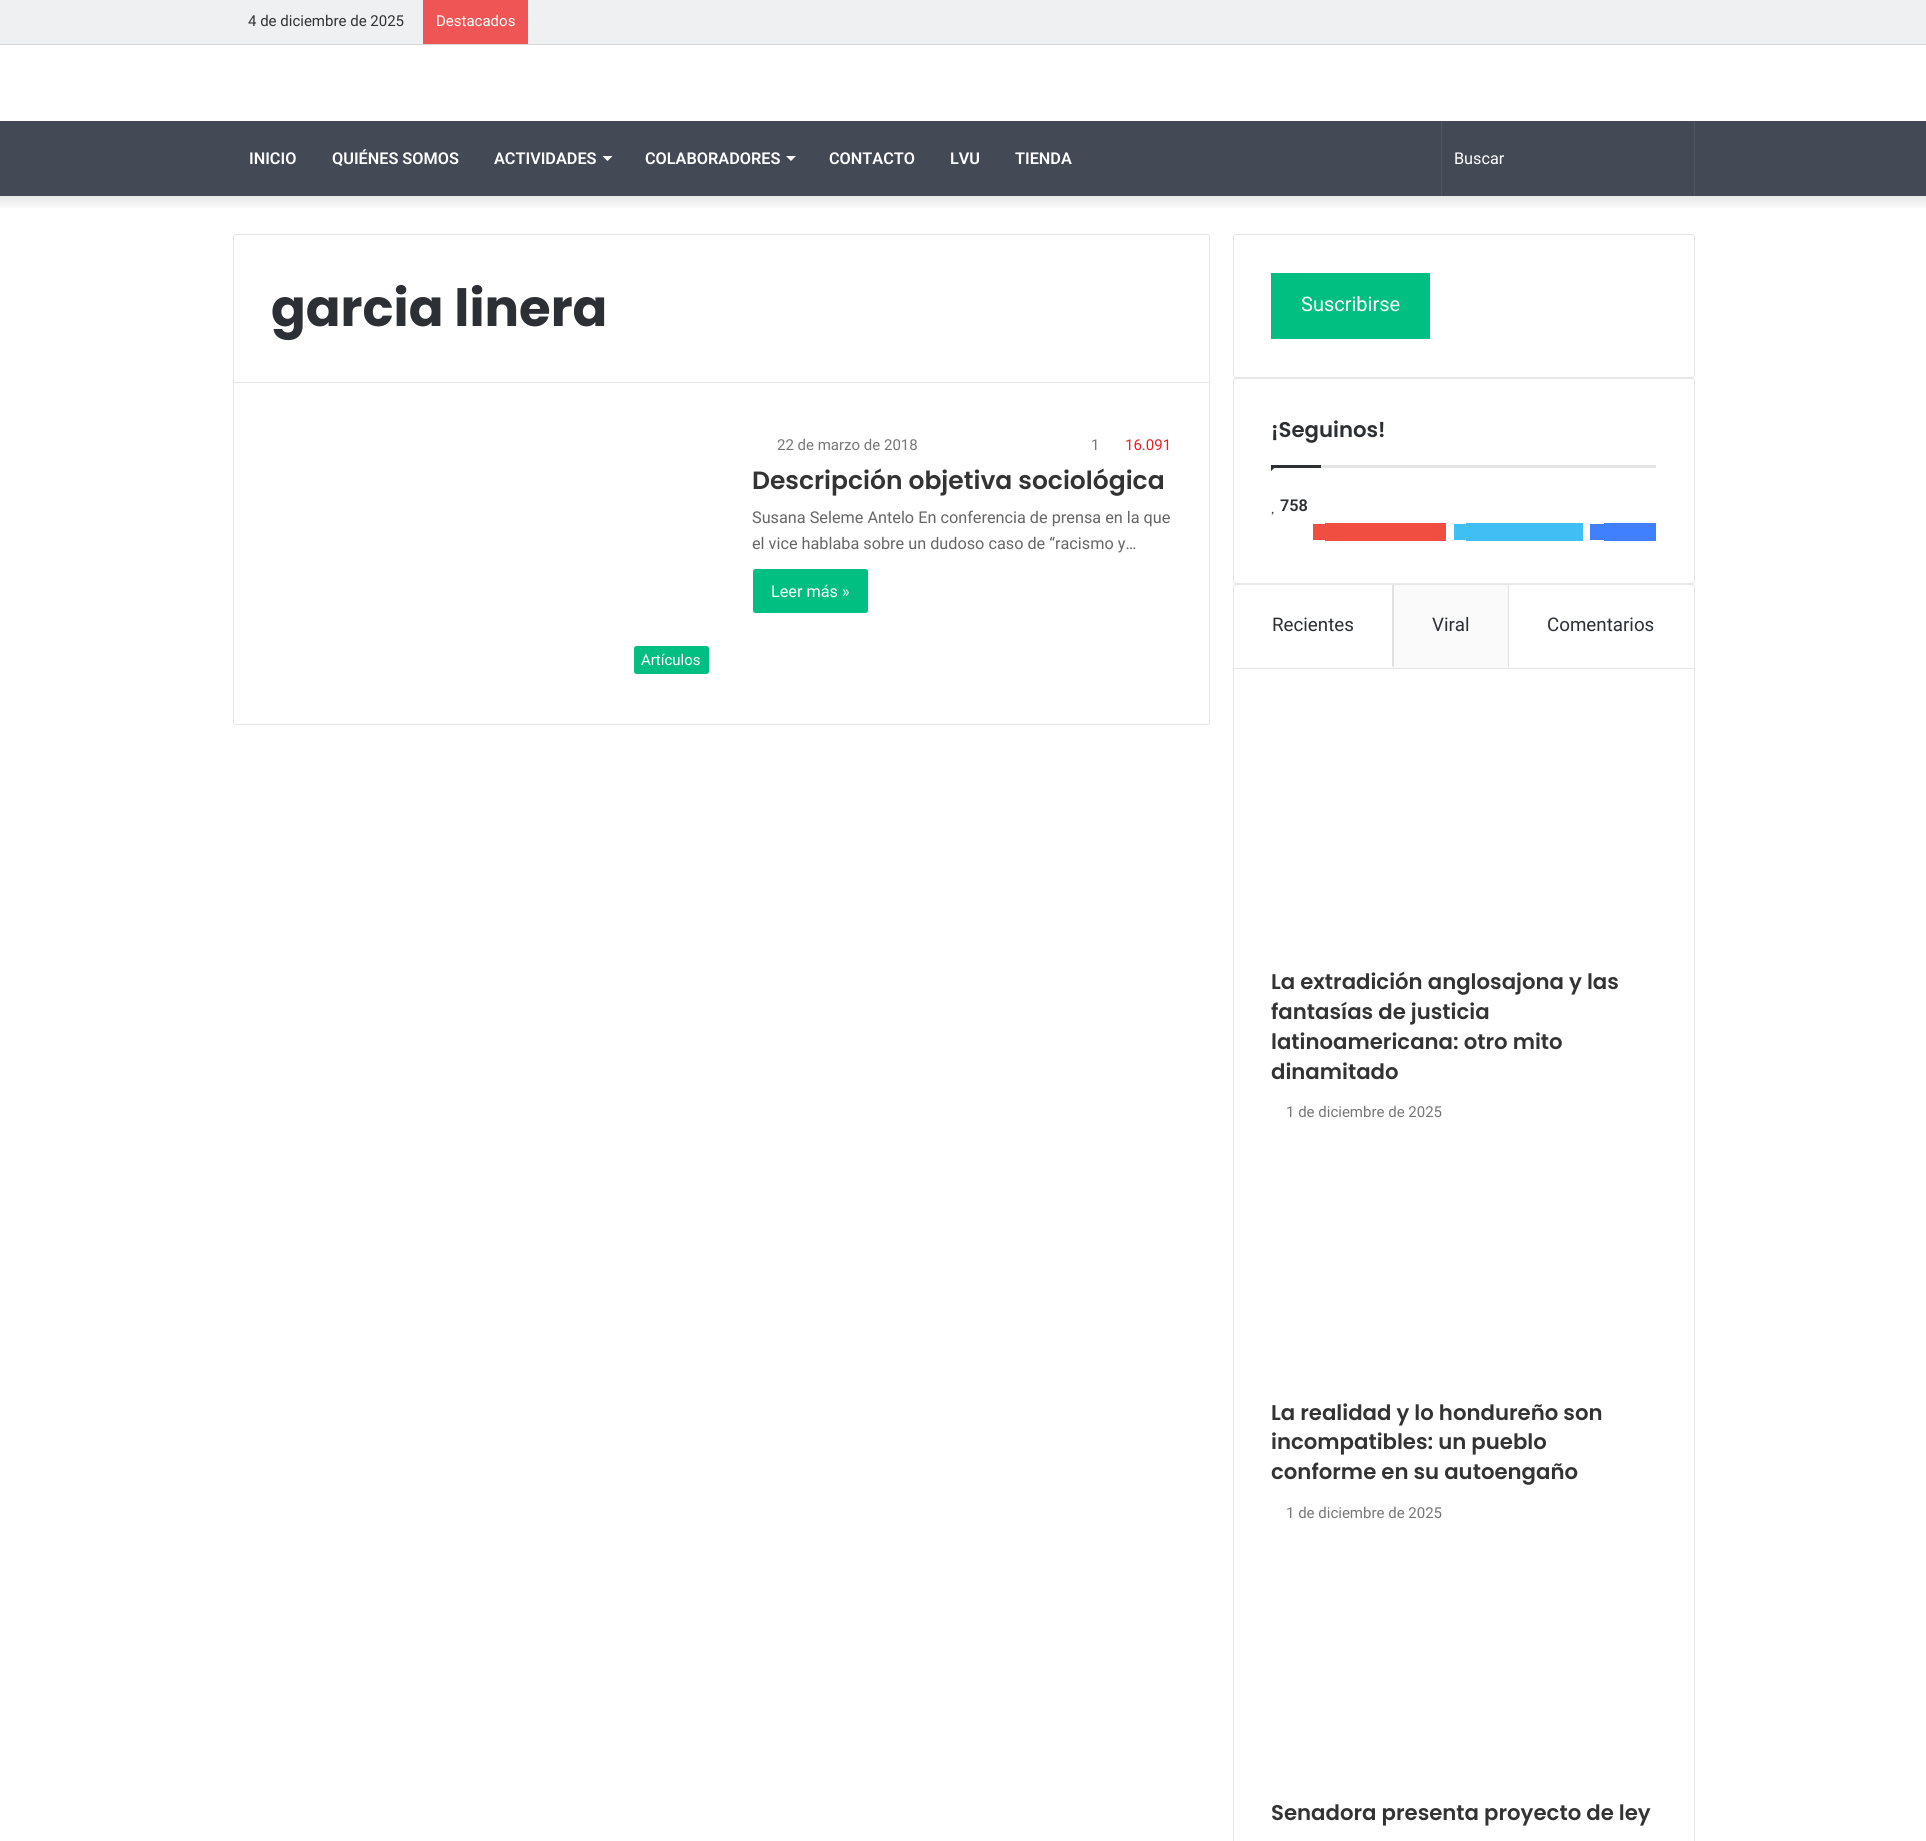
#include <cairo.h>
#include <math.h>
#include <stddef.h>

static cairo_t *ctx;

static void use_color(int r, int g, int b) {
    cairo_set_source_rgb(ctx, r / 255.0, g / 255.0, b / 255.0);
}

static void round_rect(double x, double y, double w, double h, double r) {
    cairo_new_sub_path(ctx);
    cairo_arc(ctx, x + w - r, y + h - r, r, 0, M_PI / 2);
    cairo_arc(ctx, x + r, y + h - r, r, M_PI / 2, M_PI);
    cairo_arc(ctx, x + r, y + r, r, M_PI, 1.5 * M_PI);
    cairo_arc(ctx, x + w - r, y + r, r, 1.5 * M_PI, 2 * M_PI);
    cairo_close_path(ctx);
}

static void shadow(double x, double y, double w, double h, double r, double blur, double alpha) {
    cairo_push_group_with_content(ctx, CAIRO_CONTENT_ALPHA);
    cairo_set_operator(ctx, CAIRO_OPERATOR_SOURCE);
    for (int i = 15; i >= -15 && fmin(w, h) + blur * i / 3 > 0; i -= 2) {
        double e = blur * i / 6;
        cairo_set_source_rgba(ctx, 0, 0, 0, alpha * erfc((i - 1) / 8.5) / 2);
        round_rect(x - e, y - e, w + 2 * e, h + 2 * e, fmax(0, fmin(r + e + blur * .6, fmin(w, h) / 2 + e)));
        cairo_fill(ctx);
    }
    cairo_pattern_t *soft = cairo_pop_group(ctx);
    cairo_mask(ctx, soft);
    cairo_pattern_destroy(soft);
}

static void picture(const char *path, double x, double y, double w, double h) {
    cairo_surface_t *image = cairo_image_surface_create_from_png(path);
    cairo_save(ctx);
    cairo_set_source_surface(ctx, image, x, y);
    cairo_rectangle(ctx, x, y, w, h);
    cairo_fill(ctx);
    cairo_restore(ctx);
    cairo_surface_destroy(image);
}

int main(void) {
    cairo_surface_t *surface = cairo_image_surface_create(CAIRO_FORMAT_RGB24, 1926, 1841);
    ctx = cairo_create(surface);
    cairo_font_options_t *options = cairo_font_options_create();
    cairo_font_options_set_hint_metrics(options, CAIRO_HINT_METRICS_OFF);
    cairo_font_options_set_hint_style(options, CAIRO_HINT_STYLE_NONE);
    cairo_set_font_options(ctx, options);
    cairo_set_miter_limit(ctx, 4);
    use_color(255, 255, 255);
    cairo_paint(ctx);
    cairo_save(ctx);
    cairo_rectangle(ctx, 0, 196, 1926, 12);
    cairo_clip(ctx);
    use_color(0, 0, 0);
    shadow(-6, -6, 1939, 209, 0, 6, 0.1);
    cairo_restore(ctx);
    use_color(239, 240, 241);
    cairo_rectangle(ctx, 0, 0, 1926, 44);
    cairo_fill(ctx);
    use_color(215, 216, 217);
    cairo_rectangle(ctx, 0, 44, 1926, 1);
    cairo_fill(ctx);
    cairo_select_font_face(ctx, "Roboto", CAIRO_FONT_SLANT_NORMAL, CAIRO_FONT_WEIGHT_NORMAL);
    cairo_set_font_size(ctx, 15);
    use_color(51, 51, 51);
    cairo_move_to(ctx, 248, 26);
    cairo_show_text(ctx, "4 de diciembre de 2025");
    use_color(240, 85, 85);
    cairo_rectangle(ctx, 423, 0, 105, 44);
    cairo_fill(ctx);
    use_color(255, 255, 255);
    cairo_move_to(ctx, 436, 26);
    cairo_show_text(ctx, "Destacados");
    use_color(67, 73, 85);
    cairo_rectangle(ctx, 0, 121, 1926, 75);
    cairo_fill(ctx);
    cairo_select_font_face(ctx, "Roboto SemiBold", CAIRO_FONT_SLANT_NORMAL, CAIRO_FONT_WEIGHT_NORMAL);
    cairo_set_font_size(ctx, 16.25);
    use_color(255, 255, 255);
    cairo_move_to(ctx, 249, 164);
    cairo_show_text(ctx, "INICIO");
    cairo_move_to(ctx, 332, 164);
    cairo_show_text(ctx, "QUIÉNES SOMOS");
    cairo_move_to(ctx, 494, 164);
    cairo_show_text(ctx, "ACTIVIDADES");
    cairo_new_path(ctx);
    cairo_move_to(ctx, 602.5, 156);
    cairo_line_to(ctx, 612.5, 156);
    cairo_line_to(ctx, 607.5, 161);
    cairo_close_path(ctx);
    cairo_fill(ctx);
    cairo_move_to(ctx, 645, 164);
    cairo_show_text(ctx, "COLABORADORES");
    cairo_new_path(ctx);
    cairo_move_to(ctx, 786, 156);
    cairo_line_to(ctx, 796, 156);
    cairo_line_to(ctx, 791, 161);
    cairo_close_path(ctx);
    cairo_fill(ctx);
    cairo_move_to(ctx, 829, 164);
    cairo_show_text(ctx, "CONTACTO");
    cairo_move_to(ctx, 950, 164);
    cairo_show_text(ctx, "LVU");
    cairo_move_to(ctx, 1015, 164);
    cairo_show_text(ctx, "TIENDA");
    use_color(80, 86, 97);
    cairo_rectangle(ctx, 1694, 121, 1, 75);
    cairo_fill(ctx);
    cairo_rectangle(ctx, 1441, 121, 1, 75);
    cairo_fill(ctx);
    cairo_select_font_face(ctx, "Roboto", CAIRO_FONT_SLANT_NORMAL, CAIRO_FONT_WEIGHT_NORMAL);
    use_color(255, 255, 255);
    cairo_move_to(ctx, 1454, 164);
    cairo_show_text(ctx, "Buscar");
    cairo_new_path(ctx);
    cairo_move_to(ctx, 235.5, 234.5);
    cairo_line_to(ctx, 1207.5, 234.5);
    cairo_curve_to(ctx, 1208.5, 234.5, 1209.5, 235.5, 1209.5, 236.5);
    cairo_line_to(ctx, 1209.5, 382.5);
    cairo_line_to(ctx, 233.5, 382.5);
    cairo_line_to(ctx, 233.5, 236.5);
    cairo_curve_to(ctx, 233.5, 235.5, 234.5, 234.5, 235.5, 234.5);
    cairo_close_path(ctx);
    use_color(230, 230, 230);
    cairo_set_line_width(ctx, 1);
    cairo_stroke(ctx);
    cairo_select_font_face(ctx, "Poppins", CAIRO_FONT_SLANT_NORMAL, CAIRO_FONT_WEIGHT_BOLD);
    cairo_set_font_size(ctx, 51.25);
    use_color(44, 47, 52);
    cairo_move_to(ctx, 271, 326);
    cairo_show_text(ctx, "garcia linera");
    use_color(230, 230, 230);
    cairo_rectangle(ctx, 1209, 383, 1, 341);
    cairo_fill(ctx);
    cairo_rectangle(ctx, 234, 724, 975, 1);
    cairo_fill(ctx);
    cairo_rectangle(ctx, 233, 383, 1, 341);
    cairo_fill(ctx);
    cairo_select_font_face(ctx, "Roboto", CAIRO_FONT_SLANT_NORMAL, CAIRO_FONT_WEIGHT_NORMAL);
    cairo_set_font_size(ctx, 15);
    use_color(118, 118, 118);
    cairo_move_to(ctx, 777, 450);
    cairo_show_text(ctx, "22 de marzo de 2018");
    cairo_move_to(ctx, 1091, 450);
    cairo_show_text(ctx, "1");
    use_color(241, 30, 30);
    cairo_move_to(ctx, 1125, 450);
    cairo_show_text(ctx, "16.091");
    cairo_select_font_face(ctx, "Poppins SemiBold", CAIRO_FONT_SLANT_NORMAL, CAIRO_FONT_WEIGHT_NORMAL);
    cairo_set_font_size(ctx, 25);
    use_color(51, 51, 51);
    cairo_move_to(ctx, 752, 489);
    cairo_show_text(ctx, "Descripción objetiva sociológica");
    cairo_select_font_face(ctx, "Roboto", CAIRO_FONT_SLANT_NORMAL, CAIRO_FONT_WEIGHT_NORMAL);
    cairo_set_font_size(ctx, 16.25);
    use_color(102, 102, 102);
    cairo_move_to(ctx, 752, 523);
    cairo_show_text(ctx, "Susana Seleme Antelo En conferencia de prensa en la que");
    cairo_move_to(ctx, 752, 549);
    cairo_show_text(ctx, "el vice hablaba sobre un dudoso caso de “racismo y…");
    use_color(0, 191, 128);
    round_rect(753, 569, 115, 44, 2.5);
    cairo_fill(ctx);
    use_color(255, 255, 255);
    cairo_move_to(ctx, 771, 597);
    cairo_show_text(ctx, "Leer más »");
    use_color(0, 191, 128);
    round_rect(634, 646, 75, 28, 2.5);
    cairo_fill(ctx);
    cairo_set_font_size(ctx, 15);
    use_color(255, 255, 255);
    cairo_move_to(ctx, 641, 665);
    cairo_show_text(ctx, "Artículos");
    round_rect(1233.5, 234.5, 461, 143, 2);
    use_color(230, 230, 230);
    cairo_stroke(ctx);
    use_color(0, 191, 128);
    cairo_rectangle(ctx, 1271, 273, 159, 66);
    cairo_fill(ctx);
    cairo_set_font_size(ctx, 20);
    use_color(255, 255, 255);
    cairo_move_to(ctx, 1301, 311);
    cairo_show_text(ctx, "Suscribirse");
    round_rect(1233.5, 378.5, 461, 205, 2);
    use_color(230, 230, 230);
    cairo_stroke(ctx);
    cairo_rectangle(ctx, 1321, 465, 335, 3);
    cairo_fill(ctx);
    cairo_select_font_face(ctx, "Poppins SemiBold", CAIRO_FONT_SLANT_NORMAL, CAIRO_FONT_WEIGHT_NORMAL);
    cairo_set_font_size(ctx, 21.25);
    use_color(44, 47, 52);
    cairo_move_to(ctx, 1271, 437);
    cairo_show_text(ctx, "¡Seguinos!");
    cairo_new_path(ctx);
    cairo_move_to(ctx, 1271, 465);
    cairo_line_to(ctx, 1277.5, 465);
    cairo_line_to(ctx, 1271, 471);
    cairo_close_path(ctx);
    cairo_fill(ctx);
    cairo_rectangle(ctx, 1271, 465, 50, 3);
    cairo_fill(ctx);
    cairo_select_font_face(ctx, "Roboto SemiBold", CAIRO_FONT_SLANT_NORMAL, CAIRO_FONT_WEIGHT_NORMAL);
    cairo_set_font_size(ctx, 16.25);
    cairo_move_to(ctx, 1280, 511);
    cairo_show_text(ctx, "758");
    picture("img1.png", 1271, 511, 3, 4);
    use_color(239, 78, 65);
    cairo_rectangle(ctx, 1313, 524, 12, 16);
    cairo_fill(ctx);
    cairo_rectangle(ctx, 1325, 523, 121, 18);
    cairo_fill(ctx);
    use_color(64, 191, 245);
    cairo_rectangle(ctx, 1454, 524, 12, 16);
    cairo_fill(ctx);
    cairo_rectangle(ctx, 1466, 523, 117, 18);
    cairo_fill(ctx);
    use_color(64, 128, 255);
    cairo_rectangle(ctx, 1590, 524, 14, 16);
    cairo_fill(ctx);
    cairo_rectangle(ctx, 1604, 523, 52, 18);
    cairo_fill(ctx);
    round_rect(1233.5, 584.5, 461, 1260, 2);
    use_color(230, 230, 230);
    cairo_stroke(ctx);
    cairo_rectangle(ctx, 1234, 668, 460, 1);
    cairo_fill(ctx);
    use_color(225, 225, 225);
    cairo_new_path(ctx);
    cairo_move_to(ctx, 1394, 585);
    cairo_line_to(ctx, 1394, 668);
    cairo_line_to(ctx, 1392, 666);
    cairo_line_to(ctx, 1392, 585);
    cairo_close_path(ctx);
    cairo_fill(ctx);
    cairo_select_font_face(ctx, "Roboto", CAIRO_FONT_SLANT_NORMAL, CAIRO_FONT_WEIGHT_NORMAL);
    cairo_set_font_size(ctx, 18.75);
    use_color(44, 47, 52);
    cairo_move_to(ctx, 1272, 631);
    cairo_show_text(ctx, "Recientes");
    use_color(250, 250, 250);
    cairo_rectangle(ctx, 1394, 585, 115, 83);
    cairo_fill(ctx);
    use_color(225, 225, 225);
    cairo_new_path(ctx);
    cairo_move_to(ctx, 1509, 585);
    cairo_line_to(ctx, 1509, 668);
    cairo_line_to(ctx, 1508, 666);
    cairo_line_to(ctx, 1508, 585);
    cairo_close_path(ctx);
    cairo_fill(ctx);
    use_color(44, 47, 52);
    cairo_move_to(ctx, 1432, 631);
    cairo_show_text(ctx, "Viral");
    cairo_move_to(ctx, 1547, 631);
    cairo_show_text(ctx, "Comentarios");
    cairo_select_font_face(ctx, "Poppins SemiBold", CAIRO_FONT_SLANT_NORMAL, CAIRO_FONT_WEIGHT_NORMAL);
    cairo_set_font_size(ctx, 21.25);
    use_color(51, 51, 51);
    cairo_move_to(ctx, 1271, 989);
    cairo_show_text(ctx, "La extradición anglosajona y las");
    cairo_move_to(ctx, 1271, 1019);
    cairo_show_text(ctx, "fantasías de justicia");
    cairo_move_to(ctx, 1271, 1049);
    cairo_show_text(ctx, "latinoamericana: otro mito");
    cairo_move_to(ctx, 1271, 1079);
    cairo_show_text(ctx, "dinamitado");
    cairo_select_font_face(ctx, "Roboto", CAIRO_FONT_SLANT_NORMAL, CAIRO_FONT_WEIGHT_NORMAL);
    cairo_set_font_size(ctx, 15);
    use_color(118, 118, 118);
    cairo_move_to(ctx, 1286, 1117);
    cairo_show_text(ctx, "1 de diciembre de 2025");
    cairo_select_font_face(ctx, "Poppins SemiBold", CAIRO_FONT_SLANT_NORMAL, CAIRO_FONT_WEIGHT_NORMAL);
    cairo_set_font_size(ctx, 21.25);
    use_color(51, 51, 51);
    cairo_move_to(ctx, 1271, 1420);
    cairo_show_text(ctx, "La realidad y lo hondureño son");
    cairo_move_to(ctx, 1271, 1449);
    cairo_show_text(ctx, "incompatibles: un pueblo");
    cairo_move_to(ctx, 1271, 1479);
    cairo_show_text(ctx, "conforme en su autoengaño");
    cairo_select_font_face(ctx, "Roboto", CAIRO_FONT_SLANT_NORMAL, CAIRO_FONT_WEIGHT_NORMAL);
    cairo_set_font_size(ctx, 15);
    use_color(118, 118, 118);
    cairo_move_to(ctx, 1286, 1518);
    cairo_show_text(ctx, "1 de diciembre de 2025");
    cairo_select_font_face(ctx, "Poppins SemiBold", CAIRO_FONT_SLANT_NORMAL, CAIRO_FONT_WEIGHT_NORMAL);
    cairo_set_font_size(ctx, 21.25);
    use_color(51, 51, 51);
    cairo_move_to(ctx, 1271, 1820);
    cairo_show_text(ctx, "Senadora presenta proyecto de ley");
    cairo_surface_write_to_png(surface, "result.png");
    cairo_font_options_destroy(options);
    cairo_destroy(ctx);
    cairo_surface_destroy(surface);
    return 0;
}
